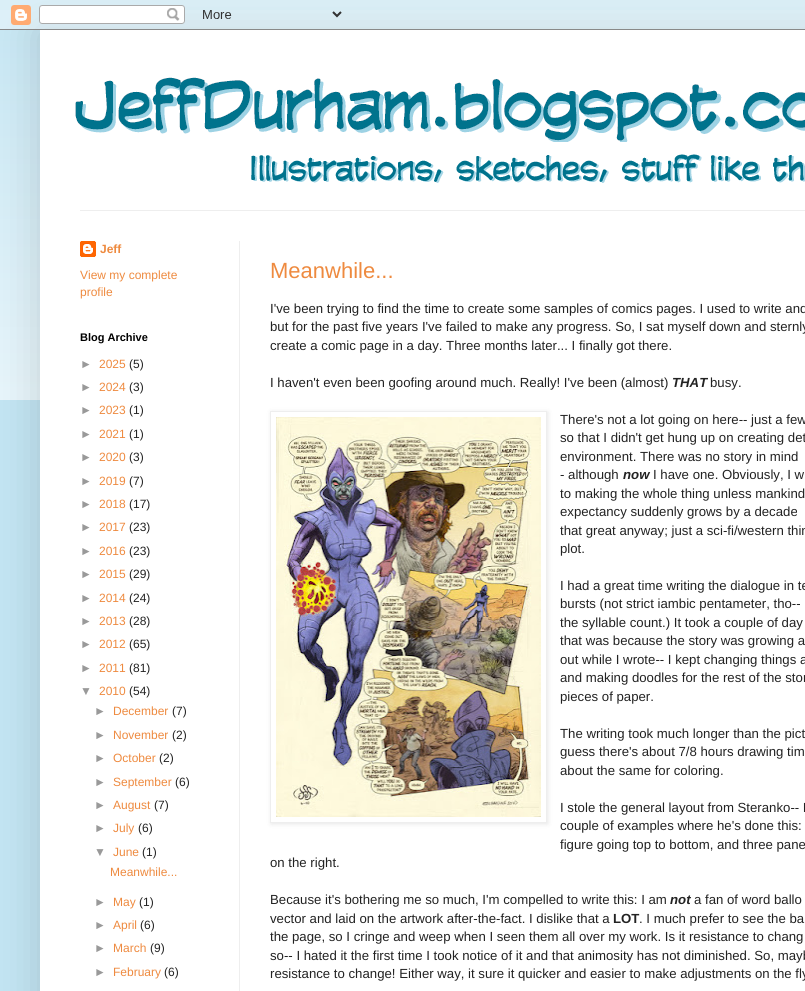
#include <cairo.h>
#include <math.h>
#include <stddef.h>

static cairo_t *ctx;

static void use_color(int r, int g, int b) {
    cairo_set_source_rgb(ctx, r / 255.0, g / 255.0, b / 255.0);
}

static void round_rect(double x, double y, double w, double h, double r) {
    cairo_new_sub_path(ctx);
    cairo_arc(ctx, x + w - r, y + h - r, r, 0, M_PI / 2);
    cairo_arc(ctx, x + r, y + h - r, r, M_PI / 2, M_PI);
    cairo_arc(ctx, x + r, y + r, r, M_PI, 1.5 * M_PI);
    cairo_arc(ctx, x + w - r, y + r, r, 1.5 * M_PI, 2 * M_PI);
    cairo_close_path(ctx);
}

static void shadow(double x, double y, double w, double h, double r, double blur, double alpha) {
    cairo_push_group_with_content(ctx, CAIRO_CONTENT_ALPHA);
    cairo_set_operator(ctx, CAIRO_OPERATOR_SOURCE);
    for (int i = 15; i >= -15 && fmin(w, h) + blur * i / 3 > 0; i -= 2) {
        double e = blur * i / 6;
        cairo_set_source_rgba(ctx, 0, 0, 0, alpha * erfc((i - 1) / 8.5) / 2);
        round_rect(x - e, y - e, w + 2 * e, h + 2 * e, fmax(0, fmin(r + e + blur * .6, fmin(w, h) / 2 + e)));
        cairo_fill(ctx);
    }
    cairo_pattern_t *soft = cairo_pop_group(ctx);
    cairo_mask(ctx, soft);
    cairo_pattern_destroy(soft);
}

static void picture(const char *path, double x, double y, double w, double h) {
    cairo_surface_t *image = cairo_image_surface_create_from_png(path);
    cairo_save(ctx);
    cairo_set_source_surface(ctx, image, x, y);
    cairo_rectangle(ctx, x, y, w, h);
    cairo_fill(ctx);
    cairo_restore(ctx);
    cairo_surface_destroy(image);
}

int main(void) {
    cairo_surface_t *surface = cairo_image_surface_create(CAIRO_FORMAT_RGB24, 805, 991);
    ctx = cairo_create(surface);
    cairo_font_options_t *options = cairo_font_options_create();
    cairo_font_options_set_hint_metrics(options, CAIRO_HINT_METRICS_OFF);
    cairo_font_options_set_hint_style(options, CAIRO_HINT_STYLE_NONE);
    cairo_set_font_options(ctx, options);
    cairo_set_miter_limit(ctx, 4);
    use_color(194, 228, 242);
    cairo_paint(ctx);
    picture("img2.png", 0, 10, 805, 390);
    use_color(0, 0, 0);
    shadow(40, 30, 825, 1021, 0, 20, 0.15);
    picture("img1.png", 0, 0, 805, 30);
    use_color(255, 255, 255);
    cairo_rectangle(ctx, 40, 30, 765, 961);
    cairo_fill(ctx);
    picture("img3.png", 75, 77, 730, 106);
    use_color(238, 238, 238);
    cairo_rectangle(ctx, 80, 210, 725, 1);
    cairo_fill(ctx);
    cairo_rectangle(ctx, 239, 241, 1, 750);
    cairo_fill(ctx);
    picture("img4.png", 80, 241, 16, 16);
    cairo_select_font_face(ctx, "Liberation Sans", CAIRO_FONT_SLANT_NORMAL, CAIRO_FONT_WEIGHT_BOLD);
    cairo_set_font_size(ctx, 12);
    use_color(238, 138, 63);
    cairo_move_to(ctx, 100, 253);
    cairo_show_text(ctx, "Jeff");
    cairo_select_font_face(ctx, "Liberation Sans", CAIRO_FONT_SLANT_NORMAL, CAIRO_FONT_WEIGHT_NORMAL);
    cairo_move_to(ctx, 80, 279);
    cairo_show_text(ctx, "View my complete");
    cairo_move_to(ctx, 80, 296);
    cairo_show_text(ctx, "profile");
    cairo_select_font_face(ctx, "Liberation Sans", CAIRO_FONT_SLANT_NORMAL, CAIRO_FONT_WEIGHT_BOLD);
    cairo_set_font_size(ctx, 11);
    use_color(0, 0, 0);
    cairo_move_to(ctx, 80, 341);
    cairo_show_text(ctx, "Blog Archive");
    cairo_select_font_face(ctx, "Liberation Sans", CAIRO_FONT_SLANT_NORMAL, CAIRO_FONT_WEIGHT_NORMAL);
    cairo_set_font_size(ctx, 12);
    use_color(153, 153, 153);
    cairo_move_to(ctx, 80, 368);
    cairo_show_text(ctx, "►");
    use_color(238, 138, 63);
    cairo_move_to(ctx, 99, 368);
    cairo_show_text(ctx, "2025");
    use_color(34, 34, 34);
    cairo_move_to(ctx, 129, 368);
    cairo_show_text(ctx, "(5)");
    use_color(153, 153, 153);
    cairo_move_to(ctx, 80, 391);
    cairo_show_text(ctx, "►");
    use_color(238, 138, 63);
    cairo_move_to(ctx, 99, 391);
    cairo_show_text(ctx, "2024");
    use_color(34, 34, 34);
    cairo_move_to(ctx, 129, 391);
    cairo_show_text(ctx, "(3)");
    use_color(153, 153, 153);
    cairo_move_to(ctx, 80, 414);
    cairo_show_text(ctx, "►");
    use_color(238, 138, 63);
    cairo_move_to(ctx, 99, 414);
    cairo_show_text(ctx, "2023");
    use_color(34, 34, 34);
    cairo_move_to(ctx, 129, 414);
    cairo_show_text(ctx, "(1)");
    use_color(153, 153, 153);
    cairo_move_to(ctx, 80, 438);
    cairo_show_text(ctx, "►");
    use_color(238, 138, 63);
    cairo_move_to(ctx, 99, 438);
    cairo_show_text(ctx, "2021");
    use_color(34, 34, 34);
    cairo_move_to(ctx, 129, 438);
    cairo_show_text(ctx, "(1)");
    use_color(153, 153, 153);
    cairo_move_to(ctx, 80, 461);
    cairo_show_text(ctx, "►");
    use_color(238, 138, 63);
    cairo_move_to(ctx, 99, 461);
    cairo_show_text(ctx, "2020");
    use_color(34, 34, 34);
    cairo_move_to(ctx, 129, 461);
    cairo_show_text(ctx, "(3)");
    use_color(153, 153, 153);
    cairo_move_to(ctx, 80, 485);
    cairo_show_text(ctx, "►");
    use_color(238, 138, 63);
    cairo_move_to(ctx, 99, 485);
    cairo_show_text(ctx, "2019");
    use_color(34, 34, 34);
    cairo_move_to(ctx, 129, 485);
    cairo_show_text(ctx, "(7)");
    use_color(153, 153, 153);
    cairo_move_to(ctx, 80, 508);
    cairo_show_text(ctx, "►");
    use_color(238, 138, 63);
    cairo_move_to(ctx, 99, 508);
    cairo_show_text(ctx, "2018");
    use_color(34, 34, 34);
    cairo_move_to(ctx, 129, 508);
    cairo_show_text(ctx, "(17)");
    use_color(153, 153, 153);
    cairo_move_to(ctx, 80, 531);
    cairo_show_text(ctx, "►");
    use_color(238, 138, 63);
    cairo_move_to(ctx, 99, 531);
    cairo_show_text(ctx, "2017");
    use_color(34, 34, 34);
    cairo_move_to(ctx, 129, 531);
    cairo_show_text(ctx, "(23)");
    use_color(153, 153, 153);
    cairo_move_to(ctx, 80, 555);
    cairo_show_text(ctx, "►");
    use_color(238, 138, 63);
    cairo_move_to(ctx, 99, 555);
    cairo_show_text(ctx, "2016");
    use_color(34, 34, 34);
    cairo_move_to(ctx, 129, 555);
    cairo_show_text(ctx, "(23)");
    use_color(153, 153, 153);
    cairo_move_to(ctx, 80, 578);
    cairo_show_text(ctx, "►");
    use_color(238, 138, 63);
    cairo_move_to(ctx, 99, 578);
    cairo_show_text(ctx, "2015");
    use_color(34, 34, 34);
    cairo_move_to(ctx, 129, 578);
    cairo_show_text(ctx, "(29)");
    use_color(153, 153, 153);
    cairo_move_to(ctx, 80, 602);
    cairo_show_text(ctx, "►");
    use_color(238, 138, 63);
    cairo_move_to(ctx, 99, 602);
    cairo_show_text(ctx, "2014");
    use_color(34, 34, 34);
    cairo_move_to(ctx, 129, 602);
    cairo_show_text(ctx, "(24)");
    use_color(153, 153, 153);
    cairo_move_to(ctx, 80, 625);
    cairo_show_text(ctx, "►");
    use_color(238, 138, 63);
    cairo_move_to(ctx, 99, 625);
    cairo_show_text(ctx, "2013");
    use_color(34, 34, 34);
    cairo_move_to(ctx, 129, 625);
    cairo_show_text(ctx, "(28)");
    use_color(153, 153, 153);
    cairo_move_to(ctx, 80, 648);
    cairo_show_text(ctx, "►");
    use_color(238, 138, 63);
    cairo_move_to(ctx, 99, 648);
    cairo_show_text(ctx, "2012");
    use_color(34, 34, 34);
    cairo_move_to(ctx, 129, 648);
    cairo_show_text(ctx, "(65)");
    use_color(153, 153, 153);
    cairo_move_to(ctx, 80, 672);
    cairo_show_text(ctx, "►");
    use_color(238, 138, 63);
    cairo_move_to(ctx, 99, 672);
    cairo_show_text(ctx, "2011");
    use_color(34, 34, 34);
    cairo_move_to(ctx, 129, 672);
    cairo_show_text(ctx, "(81)");
    use_color(153, 153, 153);
    cairo_move_to(ctx, 80, 695);
    cairo_show_text(ctx, "▼");
    use_color(238, 138, 63);
    cairo_move_to(ctx, 99, 695);
    cairo_show_text(ctx, "2010");
    use_color(34, 34, 34);
    cairo_move_to(ctx, 129, 695);
    cairo_show_text(ctx, "(54)");
    use_color(153, 153, 153);
    cairo_move_to(ctx, 94, 715);
    cairo_show_text(ctx, "►");
    use_color(238, 138, 63);
    cairo_move_to(ctx, 113, 715);
    cairo_show_text(ctx, "December");
    use_color(34, 34, 34);
    cairo_move_to(ctx, 172, 715);
    cairo_show_text(ctx, "(7)");
    use_color(153, 153, 153);
    cairo_move_to(ctx, 94, 739);
    cairo_show_text(ctx, "►");
    use_color(238, 138, 63);
    cairo_move_to(ctx, 113, 739);
    cairo_show_text(ctx, "November");
    use_color(34, 34, 34);
    cairo_move_to(ctx, 172, 739);
    cairo_show_text(ctx, "(2)");
    use_color(153, 153, 153);
    cairo_move_to(ctx, 94, 762);
    cairo_show_text(ctx, "►");
    use_color(238, 138, 63);
    cairo_move_to(ctx, 113, 762);
    cairo_show_text(ctx, "October");
    use_color(34, 34, 34);
    cairo_move_to(ctx, 159, 762);
    cairo_show_text(ctx, "(2)");
    use_color(153, 153, 153);
    cairo_move_to(ctx, 94, 786);
    cairo_show_text(ctx, "►");
    use_color(238, 138, 63);
    cairo_move_to(ctx, 113, 786);
    cairo_show_text(ctx, "September");
    use_color(34, 34, 34);
    cairo_move_to(ctx, 175, 786);
    cairo_show_text(ctx, "(6)");
    use_color(153, 153, 153);
    cairo_move_to(ctx, 94, 809);
    cairo_show_text(ctx, "►");
    use_color(238, 138, 63);
    cairo_move_to(ctx, 113, 809);
    cairo_show_text(ctx, "August");
    use_color(34, 34, 34);
    cairo_move_to(ctx, 154, 809);
    cairo_show_text(ctx, "(7)");
    use_color(153, 153, 153);
    cairo_move_to(ctx, 94, 832);
    cairo_show_text(ctx, "►");
    use_color(238, 138, 63);
    cairo_move_to(ctx, 113, 832);
    cairo_show_text(ctx, "July");
    use_color(34, 34, 34);
    cairo_move_to(ctx, 138, 832);
    cairo_show_text(ctx, "(6)");
    use_color(153, 153, 153);
    cairo_move_to(ctx, 94, 856);
    cairo_show_text(ctx, "▼");
    use_color(238, 138, 63);
    cairo_move_to(ctx, 113, 856);
    cairo_show_text(ctx, "June");
    use_color(34, 34, 34);
    cairo_move_to(ctx, 142, 856);
    cairo_show_text(ctx, "(1)");
    use_color(238, 138, 63);
    cairo_move_to(ctx, 110, 876);
    cairo_show_text(ctx, "Meanwhile...");
    use_color(153, 153, 153);
    cairo_move_to(ctx, 94, 906);
    cairo_show_text(ctx, "►");
    use_color(238, 138, 63);
    cairo_move_to(ctx, 113, 906);
    cairo_show_text(ctx, "May");
    use_color(34, 34, 34);
    cairo_move_to(ctx, 139, 906);
    cairo_show_text(ctx, "(1)");
    use_color(153, 153, 153);
    cairo_move_to(ctx, 94, 929);
    cairo_show_text(ctx, "►");
    use_color(238, 138, 63);
    cairo_move_to(ctx, 113, 929);
    cairo_show_text(ctx, "April");
    use_color(34, 34, 34);
    cairo_move_to(ctx, 140, 929);
    cairo_show_text(ctx, "(6)");
    use_color(153, 153, 153);
    cairo_move_to(ctx, 94, 952);
    cairo_show_text(ctx, "►");
    use_color(238, 138, 63);
    cairo_move_to(ctx, 113, 952);
    cairo_show_text(ctx, "March");
    use_color(34, 34, 34);
    cairo_move_to(ctx, 150, 952);
    cairo_show_text(ctx, "(9)");
    use_color(153, 153, 153);
    cairo_move_to(ctx, 94, 976);
    cairo_show_text(ctx, "►");
    use_color(238, 138, 63);
    cairo_move_to(ctx, 113, 976);
    cairo_show_text(ctx, "February");
    use_color(34, 34, 34);
    cairo_move_to(ctx, 164, 976);
    cairo_show_text(ctx, "(6)");
    cairo_set_font_size(ctx, 22);
    use_color(238, 138, 63);
    cairo_move_to(ctx, 270, 278);
    cairo_show_text(ctx, "Meanwhile...");
    cairo_set_font_size(ctx, 13.2);
    use_color(34, 34, 34);
    cairo_move_to(ctx, 270, 313);
    cairo_show_text(ctx, "I've been trying to find the time to create some samples of comics pages. I used to write and");
    cairo_move_to(ctx, 270, 331);
    cairo_show_text(ctx, "but for the past five years I've failed to make any progress. So, I sat myself down and sternly");
    cairo_move_to(ctx, 270, 350);
    cairo_show_text(ctx, "create a comic page in a day. Three months later... I finally got there.");
    cairo_move_to(ctx, 270, 387);
    cairo_show_text(ctx, "I haven't even been goofing around much. Really! I've been (almost)");
    cairo_select_font_face(ctx, "Liberation Sans", CAIRO_FONT_SLANT_ITALIC, CAIRO_FONT_WEIGHT_BOLD);
    cairo_move_to(ctx, 672, 387);
    cairo_show_text(ctx, "THAT");
    cairo_select_font_face(ctx, "Liberation Sans", CAIRO_FONT_SLANT_NORMAL, CAIRO_FONT_WEIGHT_NORMAL);
    cairo_move_to(ctx, 710, 387);
    cairo_show_text(ctx, "busy.");
    cairo_save(ctx);
    cairo_set_fill_rule(ctx, CAIRO_FILL_RULE_EVEN_ODD);
    cairo_new_path(ctx);
    cairo_move_to(ctx, 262, 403);
    cairo_line_to(ctx, 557, 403);
    cairo_line_to(ctx, 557, 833);
    cairo_line_to(ctx, 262, 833);
    cairo_close_path(ctx);
    cairo_move_to(ctx, 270, 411);
    cairo_line_to(ctx, 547, 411);
    cairo_line_to(ctx, 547, 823);
    cairo_line_to(ctx, 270, 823);
    cairo_close_path(ctx);
    cairo_clip(ctx);
    use_color(0, 0, 0);
    shadow(271, 412, 277, 412, 0, 2.5, 0.1);
    cairo_restore(ctx);
    cairo_rectangle(ctx, 270.5, 411.5, 276, 411);
    use_color(238, 238, 238);
    cairo_set_line_width(ctx, 1);
    cairo_stroke(ctx);
    picture("img5.png", 276, 417, 265, 400);
    use_color(34, 34, 34);
    cairo_move_to(ctx, 560, 424);
    cairo_show_text(ctx, "There's not a lot going on here-- just a few");
    cairo_move_to(ctx, 560, 442);
    cairo_show_text(ctx, "so that I didn't get hung up on creating det");
    cairo_move_to(ctx, 560, 461);
    cairo_show_text(ctx, "environment. There was no story in mind");
    cairo_move_to(ctx, 560, 479);
    cairo_show_text(ctx, "- although");
    cairo_select_font_face(ctx, "Liberation Sans", CAIRO_FONT_SLANT_ITALIC, CAIRO_FONT_WEIGHT_BOLD);
    cairo_move_to(ctx, 623, 479);
    cairo_show_text(ctx, "now");
    cairo_select_font_face(ctx, "Liberation Sans", CAIRO_FONT_SLANT_NORMAL, CAIRO_FONT_WEIGHT_NORMAL);
    cairo_move_to(ctx, 653, 479);
    cairo_show_text(ctx, "I have one. Obviously, I w");
    cairo_move_to(ctx, 560, 498);
    cairo_show_text(ctx, "to making the whole thing unless mankind");
    cairo_move_to(ctx, 560, 516);
    cairo_show_text(ctx, "expectancy suddenly grows by a decade");
    cairo_move_to(ctx, 560, 535);
    cairo_show_text(ctx, "that great anyway; just a sci-fi/western thin");
    cairo_move_to(ctx, 560, 553);
    cairo_show_text(ctx, "plot.");
    cairo_move_to(ctx, 560, 590);
    cairo_show_text(ctx, "I had a great time writing the dialogue in te");
    cairo_move_to(ctx, 560, 608);
    cairo_show_text(ctx, "bursts (not strict iambic pentameter, tho--");
    cairo_move_to(ctx, 560, 627);
    cairo_show_text(ctx, "the syllable count.) It took a couple of day");
    cairo_move_to(ctx, 560, 645);
    cairo_show_text(ctx, "that was because the story was growing a");
    cairo_move_to(ctx, 560, 664);
    cairo_show_text(ctx, "out while I wrote-- I kept changing things a");
    cairo_move_to(ctx, 560, 682);
    cairo_show_text(ctx, "and making doodles for the rest of the stor");
    cairo_move_to(ctx, 560, 701);
    cairo_show_text(ctx, "pieces of paper.");
    cairo_move_to(ctx, 560, 738);
    cairo_show_text(ctx, "The writing took much longer than the pict");
    cairo_move_to(ctx, 560, 756);
    cairo_show_text(ctx, "guess there's about 7/8 hours drawing tim");
    cairo_move_to(ctx, 560, 775);
    cairo_show_text(ctx, "about the same for coloring.");
    cairo_move_to(ctx, 560, 812);
    cairo_show_text(ctx, "I stole the general layout from Steranko-- I");
    cairo_move_to(ctx, 560, 830);
    cairo_show_text(ctx, "couple of examples where he's done this:");
    cairo_move_to(ctx, 560, 849);
    cairo_show_text(ctx, "figure going top to bottom, and three pane");
    cairo_move_to(ctx, 270, 867);
    cairo_show_text(ctx, "on the right.");
    cairo_move_to(ctx, 270, 904);
    cairo_show_text(ctx, "Because it's bothering me so much, I'm compelled to write this: I am");
    cairo_select_font_face(ctx, "Liberation Sans", CAIRO_FONT_SLANT_ITALIC, CAIRO_FONT_WEIGHT_BOLD);
    cairo_move_to(ctx, 670, 904);
    cairo_show_text(ctx, "not");
    cairo_select_font_face(ctx, "Liberation Sans", CAIRO_FONT_SLANT_NORMAL, CAIRO_FONT_WEIGHT_NORMAL);
    cairo_move_to(ctx, 694, 904);
    cairo_show_text(ctx, "a fan of word ballo");
    cairo_move_to(ctx, 270, 923);
    cairo_show_text(ctx, "vector and laid on the artwork after-the-fact. I dislike that a");
    cairo_select_font_face(ctx, "Liberation Sans", CAIRO_FONT_SLANT_NORMAL, CAIRO_FONT_WEIGHT_BOLD);
    cairo_move_to(ctx, 613, 923);
    cairo_show_text(ctx, "LOT");
    cairo_select_font_face(ctx, "Liberation Sans", CAIRO_FONT_SLANT_NORMAL, CAIRO_FONT_WEIGHT_NORMAL);
    cairo_move_to(ctx, 639, 923);
    cairo_show_text(ctx, ". I much prefer to see the ba");
    cairo_move_to(ctx, 270, 941);
    cairo_show_text(ctx, "the page, so I cringe and weep when I seen them all over my work. Is it resistance to chang");
    cairo_move_to(ctx, 270, 960);
    cairo_show_text(ctx, "so-- I hated it the first time I took notice of it and that animosity has not diminished. So, mayb");
    cairo_move_to(ctx, 270, 978);
    cairo_show_text(ctx, "resistance to change! Either way, it sure it quicker and easier to make adjustments on the fly");
    cairo_surface_write_to_png(surface, "result.png");
    cairo_font_options_destroy(options);
    cairo_destroy(ctx);
    cairo_surface_destroy(surface);
    return 0;
}
